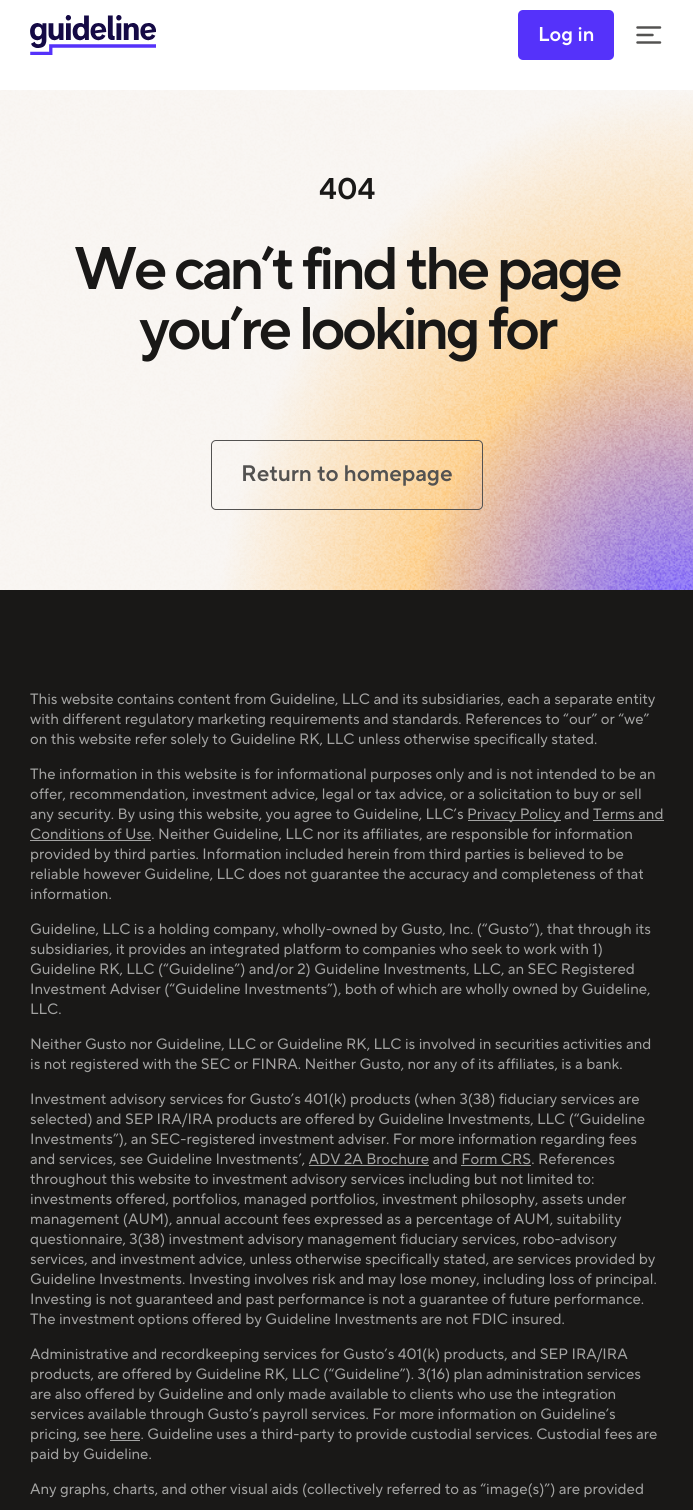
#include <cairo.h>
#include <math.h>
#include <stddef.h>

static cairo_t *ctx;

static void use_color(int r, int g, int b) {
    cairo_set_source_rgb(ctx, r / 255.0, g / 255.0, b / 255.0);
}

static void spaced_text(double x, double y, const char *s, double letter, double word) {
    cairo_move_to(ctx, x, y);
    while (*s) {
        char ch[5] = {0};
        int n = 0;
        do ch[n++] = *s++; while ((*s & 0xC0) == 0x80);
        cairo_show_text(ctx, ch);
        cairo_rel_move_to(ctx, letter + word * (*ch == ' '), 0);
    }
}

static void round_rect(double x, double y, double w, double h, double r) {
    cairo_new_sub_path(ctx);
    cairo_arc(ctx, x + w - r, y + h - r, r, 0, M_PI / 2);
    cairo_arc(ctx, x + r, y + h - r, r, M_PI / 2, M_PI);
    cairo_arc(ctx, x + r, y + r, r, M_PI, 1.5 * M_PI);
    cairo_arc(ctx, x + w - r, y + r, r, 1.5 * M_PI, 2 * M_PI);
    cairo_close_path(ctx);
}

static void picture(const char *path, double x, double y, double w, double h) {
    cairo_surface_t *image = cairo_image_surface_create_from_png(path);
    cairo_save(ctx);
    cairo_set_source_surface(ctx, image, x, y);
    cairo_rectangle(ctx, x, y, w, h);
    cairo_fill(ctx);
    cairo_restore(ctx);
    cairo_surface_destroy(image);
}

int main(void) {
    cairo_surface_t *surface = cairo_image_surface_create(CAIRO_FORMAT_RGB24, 693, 1510);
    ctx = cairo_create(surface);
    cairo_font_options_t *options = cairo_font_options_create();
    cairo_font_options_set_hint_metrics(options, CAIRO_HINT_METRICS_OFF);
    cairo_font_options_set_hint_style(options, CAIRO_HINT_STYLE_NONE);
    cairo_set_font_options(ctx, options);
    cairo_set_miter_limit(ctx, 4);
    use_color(255, 255, 255);
    cairo_paint(ctx);
    picture("img1.png", 30, 15, 126, 40);
    use_color(85, 50, 250);
    round_rect(518, 10, 96, 50, 5);
    cairo_fill(ctx);
    cairo_select_font_face(ctx, "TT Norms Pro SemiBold", CAIRO_FONT_SLANT_NORMAL, CAIRO_FONT_WEIGHT_NORMAL);
    cairo_set_font_size(ctx, 20);
    use_color(255, 255, 255);
    cairo_move_to(ctx, 538, 41);
    cairo_show_text(ctx, "Log in");
    cairo_new_path(ctx);
    cairo_move_to(ctx, 637.5, 35);
    cairo_line_to(ctx, 652.5, 35);
    cairo_move_to(ctx, 637.5, 27.5);
    cairo_line_to(ctx, 660, 27.5);
    cairo_move_to(ctx, 637.5, 42.5);
    cairo_line_to(ctx, 660, 42.5);
    use_color(83, 82, 81);
    cairo_set_line_width(ctx, 2.5);
    cairo_set_line_cap(ctx, CAIRO_LINE_CAP_ROUND);
    cairo_set_line_join(ctx, CAIRO_LINE_JOIN_ROUND);
    cairo_stroke(ctx);
    picture("img2.png", 0, 90, 693, 500);
    cairo_set_font_size(ctx, 30);
    use_color(25, 24, 23);
    cairo_move_to(ctx, 319, 199);
    cairo_show_text(ctx, "404");
    cairo_set_font_size(ctx, 60);
    spaced_text(74, 289, "We can’t find the page", -3.6, 0);
    spaced_text(139, 349, "you’re looking for", -3.6, 0);
    round_rect(211.5, 440.5, 271, 69, 4.5);
    use_color(83, 82, 81);
    cairo_set_line_width(ctx, 1);
    cairo_set_line_cap(ctx, CAIRO_LINE_CAP_BUTT);
    cairo_set_line_join(ctx, CAIRO_LINE_JOIN_MITER);
    cairo_stroke(ctx);
    cairo_set_font_size(ctx, 22.5);
    spaced_text(241, 481, "Return to homepage", -0.1, 0);
    use_color(25, 24, 23);
    cairo_rectangle(ctx, 0, 590, 693, 920);
    cairo_fill(ctx);
    cairo_select_font_face(ctx, "TTNormsPro", CAIRO_FONT_SLANT_NORMAL, CAIRO_FONT_WEIGHT_NORMAL);
    cairo_set_font_size(ctx, 15);
    use_color(163, 163, 162);
    cairo_move_to(ctx, 30, 704);
    cairo_show_text(ctx, "This website contains content from Guideline, LLC and its subsidiaries, each a separate entity");
    cairo_move_to(ctx, 30, 724);
    cairo_show_text(ctx, "with different regulatory marketing requirements and standards. References to “our” or “we”");
    cairo_move_to(ctx, 30, 744);
    cairo_show_text(ctx, "on this website refer solely to Guideline RK, LLC unless otherwise specifically stated.");
    cairo_move_to(ctx, 30, 779);
    cairo_show_text(ctx, "The information in this website is for informational purposes only and is not intended to be an");
    cairo_move_to(ctx, 30, 799);
    cairo_show_text(ctx, "offer, recommendation, investment advice, legal or tax advice, or a solicitation to buy or sell");
    cairo_move_to(ctx, 30, 819);
    cairo_show_text(ctx, "any security. By using this website, you agree to Guideline, LLC’s");
    cairo_rectangle(ctx, 468, 820, 93, 1);
    cairo_fill(ctx);
    cairo_move_to(ctx, 467, 819);
    cairo_show_text(ctx, "Privacy Policy and Terms and");
    cairo_rectangle(ctx, 30, 840, 121, 1);
    cairo_fill(ctx);
    cairo_move_to(ctx, 30, 839);
    cairo_show_text(ctx, "Conditions of Use. Neither Guideline, LLC nor its affiliates, are responsible for information");
    cairo_rectangle(ctx, 593, 820, 71, 1);
    cairo_fill(ctx);
    cairo_move_to(ctx, 30, 859);
    cairo_show_text(ctx, "provided by third parties. Information included herein from third parties is believed to be");
    cairo_move_to(ctx, 30, 879);
    cairo_show_text(ctx, "reliable however Guideline, LLC does not guarantee the accuracy and completeness of that");
    cairo_move_to(ctx, 30, 899);
    cairo_show_text(ctx, "information.");
    cairo_move_to(ctx, 30, 934);
    cairo_show_text(ctx, "Guideline, LLC is a holding company, wholly-owned by Gusto, Inc. (“Gusto”), that through its");
    cairo_move_to(ctx, 30, 954);
    cairo_show_text(ctx, "subsidiaries, it provides an integrated platform to companies who seek to work with 1)");
    cairo_move_to(ctx, 30, 974);
    cairo_show_text(ctx, "Guideline RK, LLC (“Guideline”) and/or 2) Guideline Investments, LLC, an SEC Registered");
    cairo_move_to(ctx, 30, 994);
    cairo_show_text(ctx, "Investment Adviser (“Guideline Investments”), both of which are wholly owned by Guideline,");
    cairo_move_to(ctx, 30, 1014);
    cairo_show_text(ctx, "LLC.");
    cairo_move_to(ctx, 30, 1049);
    cairo_show_text(ctx, "Neither Gusto nor Guideline, LLC or Guideline RK, LLC is involved in securities activities and");
    cairo_move_to(ctx, 30, 1069);
    cairo_show_text(ctx, "is not registered with the SEC or FINRA. Neither Gusto, nor any of its affiliates, is a bank.");
    cairo_move_to(ctx, 30, 1104);
    cairo_show_text(ctx, "Investment advisory services for Gusto’s 401(k) products (when 3(38) fiduciary services are");
    cairo_move_to(ctx, 30, 1124);
    cairo_show_text(ctx, "selected) and SEP IRA/IRA products are offered by Guideline Investments, LLC (“Guideline");
    cairo_move_to(ctx, 30, 1144);
    cairo_show_text(ctx, "Investments”), an SEC-registered investment adviser. For more information regarding fees");
    cairo_move_to(ctx, 30, 1164);
    cairo_show_text(ctx, "and services, see Guideline Investments’, ADV 2A Brochure and Form CRS. References");
    cairo_rectangle(ctx, 309, 1165, 120, 1);
    cairo_fill(ctx);
    cairo_rectangle(ctx, 461, 1165, 70, 1);
    cairo_fill(ctx);
    cairo_move_to(ctx, 30, 1184);
    cairo_show_text(ctx, "throughout this website to investment advisory services including but not limited to:");
    cairo_move_to(ctx, 30, 1204);
    cairo_show_text(ctx, "investments offered, portfolios, managed portfolios, investment philosophy, assets under");
    cairo_move_to(ctx, 30, 1224);
    cairo_show_text(ctx, "management (AUM), annual account fees expressed as a percentage of AUM, suitability");
    cairo_move_to(ctx, 30, 1244);
    cairo_show_text(ctx, "questionnaire, 3(38) investment advisory management fiduciary services, robo-advisory");
    cairo_move_to(ctx, 30, 1264);
    cairo_show_text(ctx, "services, and investment advice, unless otherwise specifically stated, are services provided by");
    cairo_move_to(ctx, 30, 1284);
    cairo_show_text(ctx, "Guideline Investments. Investing involves risk and may lose money, including loss of principal.");
    cairo_move_to(ctx, 30, 1304);
    cairo_show_text(ctx, "Investing is not guaranteed and past performance is not a guarantee of future performance.");
    cairo_move_to(ctx, 30, 1324);
    cairo_show_text(ctx, "The investment options offered by Guideline Investments are not FDIC insured.");
    cairo_move_to(ctx, 30, 1359);
    cairo_show_text(ctx, "Administrative and recordkeeping services for Gusto’s 401(k) products, and SEP IRA/IRA");
    cairo_move_to(ctx, 30, 1379);
    cairo_show_text(ctx, "products, are offered by Guideline RK, LLC (“Guideline”). 3(16) plan administration services");
    cairo_move_to(ctx, 30, 1399);
    cairo_show_text(ctx, "are also offered by Guideline and only made available to clients who use the integration");
    cairo_move_to(ctx, 30, 1419);
    cairo_show_text(ctx, "services available through Gusto’s payroll services. For more information on Guideline’s");
    cairo_move_to(ctx, 30, 1439);
    cairo_show_text(ctx, "pricing, see here. Guideline uses a third-party to provide custodial services. Custodial fees are");
    cairo_rectangle(ctx, 110, 1440, 30, 1);
    cairo_fill(ctx);
    cairo_move_to(ctx, 30, 1459);
    cairo_show_text(ctx, "paid by Guideline.");
    cairo_move_to(ctx, 30, 1494);
    cairo_show_text(ctx, "Any graphs, charts, and other visual aids (collectively referred to as “image(s)”) are provided");
    cairo_surface_write_to_png(surface, "result.png");
    cairo_font_options_destroy(options);
    cairo_destroy(ctx);
    cairo_surface_destroy(surface);
    return 0;
}
